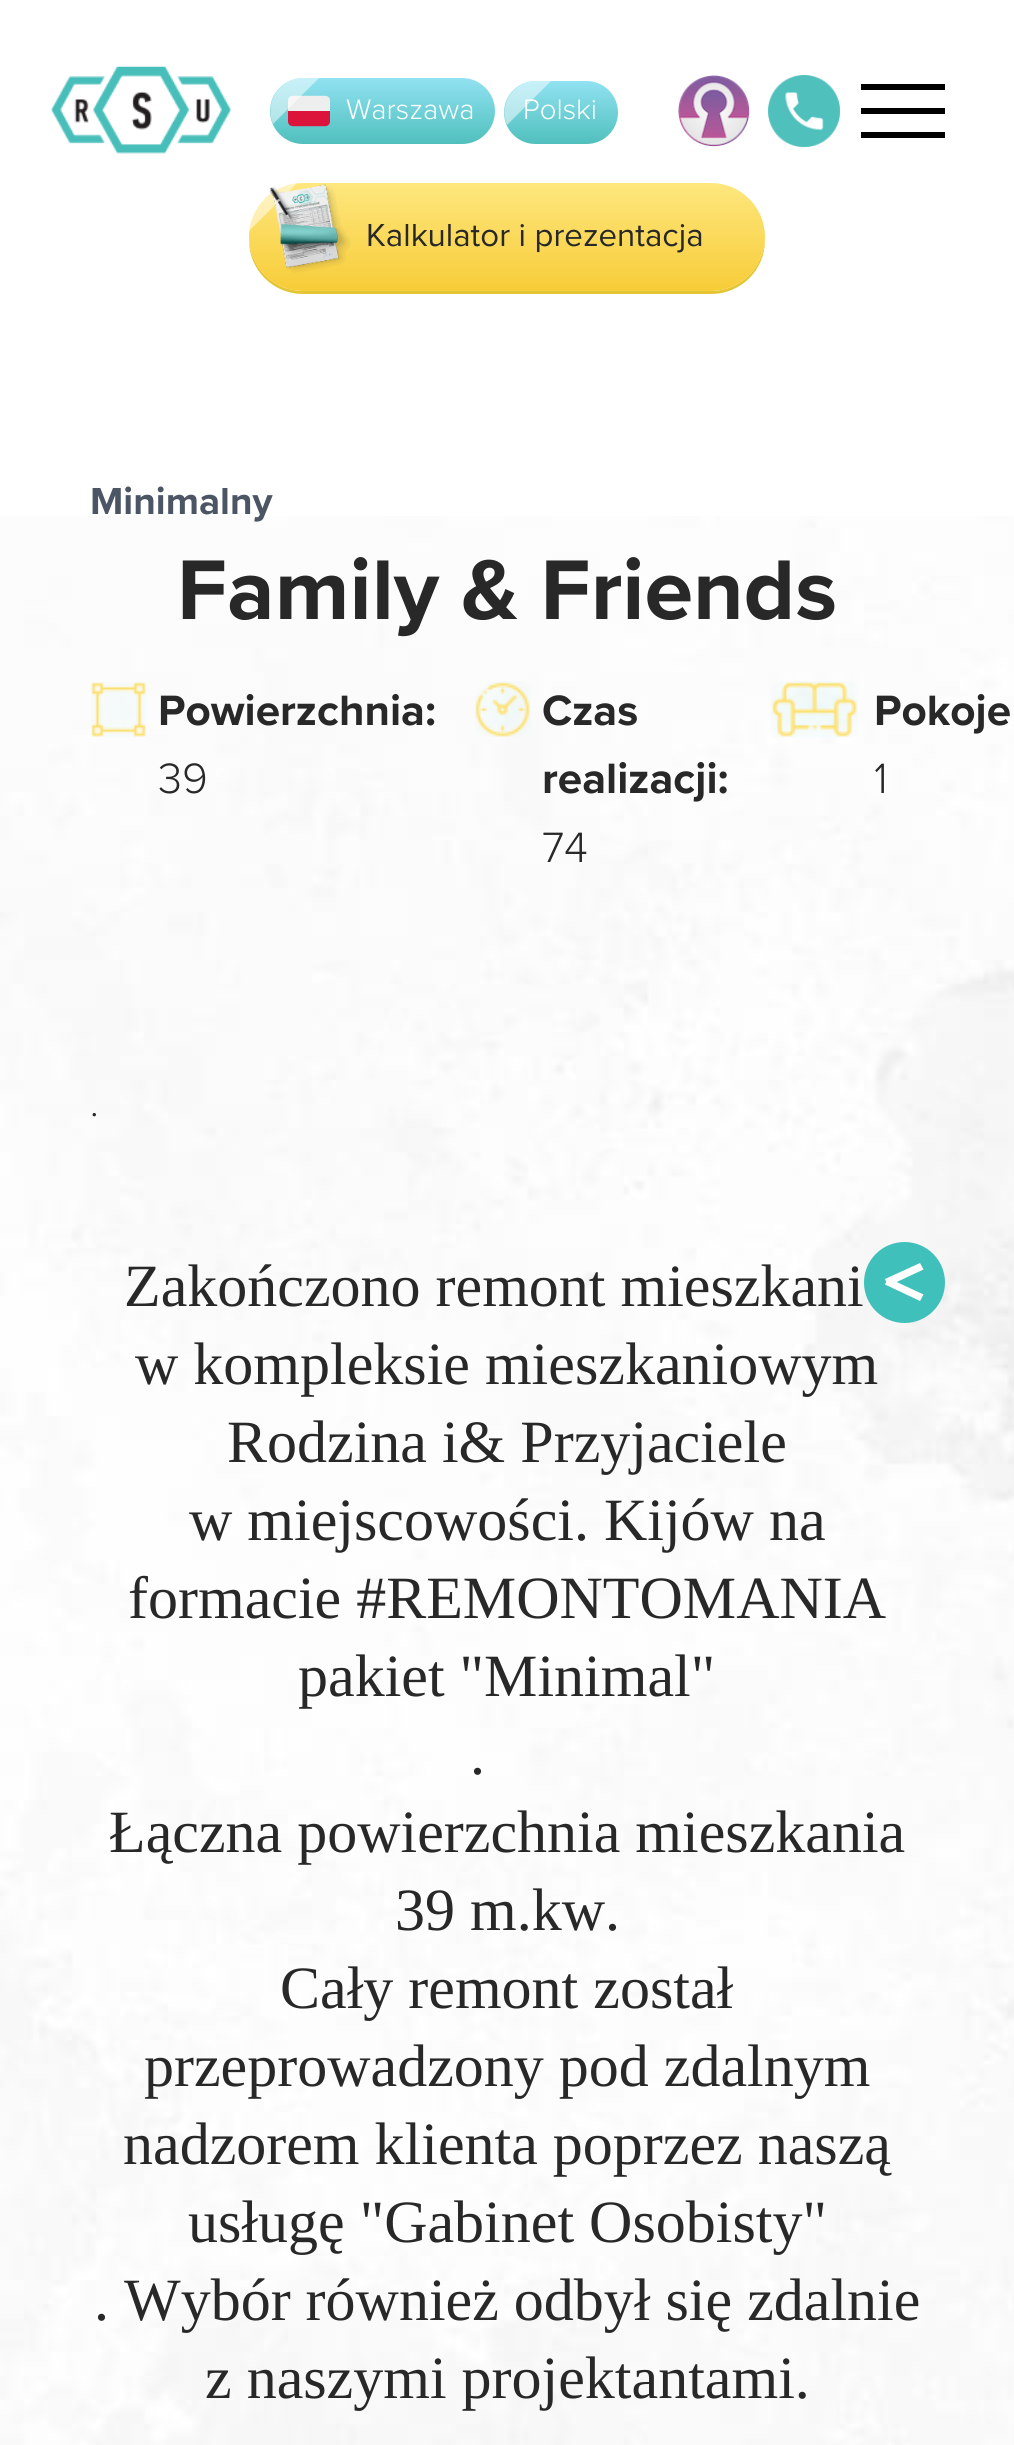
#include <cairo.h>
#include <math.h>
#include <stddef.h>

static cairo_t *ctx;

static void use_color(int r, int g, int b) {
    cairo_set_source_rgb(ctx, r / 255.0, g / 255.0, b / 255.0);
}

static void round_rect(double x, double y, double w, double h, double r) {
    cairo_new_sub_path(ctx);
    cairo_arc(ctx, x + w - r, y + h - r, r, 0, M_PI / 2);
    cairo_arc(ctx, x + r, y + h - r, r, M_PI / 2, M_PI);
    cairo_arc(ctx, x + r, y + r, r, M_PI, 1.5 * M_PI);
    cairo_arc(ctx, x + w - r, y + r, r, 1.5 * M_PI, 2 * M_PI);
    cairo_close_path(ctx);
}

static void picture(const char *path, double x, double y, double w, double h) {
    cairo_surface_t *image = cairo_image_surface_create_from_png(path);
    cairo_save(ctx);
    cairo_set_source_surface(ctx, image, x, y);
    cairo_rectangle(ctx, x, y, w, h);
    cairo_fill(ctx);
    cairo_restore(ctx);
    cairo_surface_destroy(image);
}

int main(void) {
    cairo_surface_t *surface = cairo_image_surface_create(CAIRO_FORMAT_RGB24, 1014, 2445);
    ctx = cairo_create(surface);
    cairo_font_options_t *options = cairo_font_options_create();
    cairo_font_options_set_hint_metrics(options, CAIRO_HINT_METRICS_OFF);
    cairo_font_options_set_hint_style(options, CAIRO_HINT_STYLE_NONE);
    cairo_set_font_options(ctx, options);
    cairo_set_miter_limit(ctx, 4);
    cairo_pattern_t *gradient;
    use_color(255, 255, 255);
    cairo_paint(ctx);
    picture("img1.png", 0, 516, 1014, 1929);
    picture("img2.png", 51, 66, 180, 88);
    gradient = cairo_pattern_create_linear(383, 78, 383, 144);
    cairo_pattern_add_color_stop_rgba(gradient, 0, 0.569, 0.886, 0.949, 1);
    cairo_pattern_add_color_stop_rgba(gradient, 1, 0.314, 0.753, 0.741, 1);
    cairo_set_source(ctx, gradient);
    cairo_pattern_destroy(gradient);
    round_rect(270, 78, 225, 66, 33);
    cairo_fill(ctx);
    picture("img3.png", 288, 95, 42, 32);
    cairo_set_source_rgba(ctx, 1, 1, 1, 0.5);
    cairo_new_path(ctx);
    cairo_move_to(ctx, 303, 78);
    cairo_line_to(ctx, 319, 78);
    cairo_line_to(ctx, 273, 124);
    cairo_curve_to(ctx, 264, 103, 279, 78, 303, 78);
    cairo_close_path(ctx);
    cairo_fill(ctx);
    cairo_select_font_face(ctx, "Proxima Nova Light", CAIRO_FONT_SLANT_NORMAL, CAIRO_FONT_WEIGHT_NORMAL);
    cairo_set_font_size(ctx, 29.25);
    use_color(255, 255, 255);
    cairo_move_to(ctx, 346, 119);
    cairo_show_text(ctx, "Warszawa");
    gradient = cairo_pattern_create_linear(561, 81, 561, 144);
    cairo_pattern_add_color_stop_rgba(gradient, 0, 0.569, 0.886, 0.949, 1);
    cairo_pattern_add_color_stop_rgba(gradient, 1, 0.314, 0.753, 0.741, 1);
    cairo_set_source(ctx, gradient);
    cairo_pattern_destroy(gradient);
    round_rect(504, 81, 114, 63, 31.5);
    cairo_fill(ctx);
    use_color(255, 255, 255);
    cairo_move_to(ctx, 523, 119);
    cairo_show_text(ctx, "Polski");
    cairo_set_source_rgba(ctx, 1, 1, 1, 0.5);
    cairo_new_path(ctx);
    cairo_move_to(ctx, 536, 81);
    cairo_line_to(ctx, 551, 81);
    cairo_line_to(ctx, 507, 125);
    cairo_curve_to(ctx, 498, 105, 513, 81, 536, 81);
    cairo_close_path(ctx);
    cairo_fill(ctx);
    picture("img4.png", 678, 75, 72, 72);
    picture("img5.png", 768, 75, 72, 72);
    use_color(0, 0, 0);
    cairo_rectangle(ctx, 861, 84, 84, 6);
    cairo_fill(ctx);
    cairo_rectangle(ctx, 861, 108, 84, 6);
    cairo_fill(ctx);
    cairo_rectangle(ctx, 861, 132, 84, 6);
    cairo_fill(ctx);
    use_color(228, 197, 52);
    cairo_new_path(ctx);
    cairo_move_to(ctx, 249, 238);
    cairo_line_to(ctx, 249, 240);
    cairo_curve_to(ctx, 249, 270, 273, 294, 303, 294);
    cairo_line_to(ctx, 711, 294);
    cairo_curve_to(ctx, 741, 294, 765, 270, 765, 240);
    cairo_line_to(ctx, 765, 238);
    cairo_curve_to(ctx, 764, 268, 740, 291, 711, 291);
    cairo_line_to(ctx, 303, 291);
    cairo_curve_to(ctx, 274, 291, 250, 268, 249, 238);
    cairo_close_path(ctx);
    cairo_fill(ctx);
    gradient = cairo_pattern_create_linear(507, 291, 507, 183);
    cairo_pattern_add_color_stop_rgba(gradient, 0, 0.969, 0.8, 0.22, 1);
    cairo_pattern_add_color_stop_rgba(gradient, 1, 0.996, 0.906, 0.494, 1);
    cairo_set_source(ctx, gradient);
    cairo_pattern_destroy(gradient);
    round_rect(249, 183, 516, 108, 54);
    cairo_fill(ctx);
    cairo_set_source_rgba(ctx, 1, 1, 1, 0.5);
    cairo_new_path(ctx);
    cairo_move_to(ctx, 297, 183);
    cairo_line_to(ctx, 249, 231);
    cairo_curve_to(ctx, 252, 206, 272, 186, 297, 183);
    cairo_close_path(ctx);
    cairo_fill(ctx);
    picture("img6.png", 269, 184, 82, 89);
    cairo_select_font_face(ctx, "Proxima Nova", CAIRO_FONT_SLANT_NORMAL, CAIRO_FONT_WEIGHT_NORMAL);
    cairo_set_font_size(ctx, 33);
    use_color(40, 40, 40);
    cairo_move_to(ctx, 366, 246);
    cairo_show_text(ctx, "Kalkulator i prezentacja");
    cairo_select_font_face(ctx, "Proxima Nova", CAIRO_FONT_SLANT_NORMAL, CAIRO_FONT_WEIGHT_BOLD);
    cairo_set_font_size(ctx, 39);
    use_color(75, 85, 99);
    cairo_move_to(ctx, 90, 514);
    cairo_show_text(ctx, "Minimalny");
    cairo_set_font_size(ctx, 87.75);
    use_color(40, 40, 40);
    cairo_move_to(ctx, 177, 619);
    cairo_show_text(ctx, "Family & Friends");
    picture("img7.png", 91, 682, 56, 55);
    cairo_set_font_size(ctx, 44);
    cairo_move_to(ctx, 158, 725);
    cairo_show_text(ctx, "Powierzchnia:");
    cairo_select_font_face(ctx, "Proxima Nova Light", CAIRO_FONT_SLANT_NORMAL, CAIRO_FONT_WEIGHT_NORMAL);
    cairo_move_to(ctx, 158, 793);
    cairo_show_text(ctx, "39");
    picture("img8.png", 475, 681, 56, 56);
    cairo_select_font_face(ctx, "Proxima Nova", CAIRO_FONT_SLANT_NORMAL, CAIRO_FONT_WEIGHT_BOLD);
    cairo_move_to(ctx, 542, 725);
    cairo_show_text(ctx, "Czas");
    cairo_move_to(ctx, 542, 793);
    cairo_show_text(ctx, "realizacji:");
    cairo_select_font_face(ctx, "Proxima Nova Light", CAIRO_FONT_SLANT_NORMAL, CAIRO_FONT_WEIGHT_NORMAL);
    cairo_move_to(ctx, 542, 862);
    cairo_show_text(ctx, "74");
    picture("img9.png", 771, 681, 87, 57);
    cairo_select_font_face(ctx, "Proxima Nova", CAIRO_FONT_SLANT_NORMAL, CAIRO_FONT_WEIGHT_BOLD);
    cairo_move_to(ctx, 874, 725);
    cairo_show_text(ctx, "Pokoje");
    cairo_select_font_face(ctx, "Proxima Nova Light", CAIRO_FONT_SLANT_NORMAL, CAIRO_FONT_WEIGHT_NORMAL);
    cairo_move_to(ctx, 874, 793);
    cairo_show_text(ctx, "1");
    cairo_set_font_size(ctx, 39);
    cairo_move_to(ctx, 90, 1116);
    cairo_show_text(ctx, ".");
    cairo_select_font_face(ctx, "Liberation Serif", CAIRO_FONT_SLANT_NORMAL, CAIRO_FONT_WEIGHT_NORMAL);
    cairo_set_font_size(ctx, 60);
    cairo_move_to(ctx, 124, 1306);
    cairo_show_text(ctx, "Zakończono remont mieszkani");
    cairo_move_to(ctx, 135, 1384);
    cairo_show_text(ctx, "w kompleksie mieszkaniowym");
    cairo_move_to(ctx, 227, 1462);
    cairo_show_text(ctx, "Rodzina i& Przyjaciele");
    cairo_move_to(ctx, 189, 1540);
    cairo_show_text(ctx, "w miejscowości. Kijów na");
    cairo_move_to(ctx, 128, 1618);
    cairo_show_text(ctx, "formacie #REMONTOMANIA");
    cairo_move_to(ctx, 298, 1696);
    cairo_show_text(ctx, "pakiet \"Minimal\"");
    cairo_move_to(ctx, 470, 1774);
    cairo_show_text(ctx, ".");
    cairo_move_to(ctx, 109, 1852);
    cairo_show_text(ctx, "Łączna powierzchnia mieszkania");
    cairo_move_to(ctx, 395, 1930);
    cairo_show_text(ctx, "39 m.kw.");
    cairo_move_to(ctx, 280, 2008);
    cairo_show_text(ctx, "Cały remont został");
    cairo_move_to(ctx, 144, 2086);
    cairo_show_text(ctx, "przeprowadzony pod zdalnym");
    cairo_move_to(ctx, 123, 2164);
    cairo_show_text(ctx, "nadzorem klienta poprzez naszą");
    cairo_move_to(ctx, 188, 2242);
    cairo_show_text(ctx, "usługę \"Gabinet Osobisty\"");
    cairo_move_to(ctx, 94, 2320);
    cairo_show_text(ctx, ". Wybór również odbył się zdalnie");
    cairo_move_to(ctx, 205, 2398);
    cairo_show_text(ctx, "z naszymi projektantami.");
    use_color(64, 192, 186);
    cairo_new_path(ctx);
    cairo_arc(ctx, 904.5, 1282.5, 40.5, 0, 2 * M_PI);
    cairo_fill(ctx);
    use_color(255, 255, 255);
    cairo_new_path(ctx);
    cairo_move_to(ctx, 885, 1279);
    cairo_line_to(ctx, 920, 1263);
    cairo_line_to(ctx, 923.5, 1269.5);
    cairo_line_to(ctx, 888, 1286);
    cairo_close_path(ctx);
    cairo_fill(ctx);
    cairo_new_path(ctx);
    cairo_move_to(ctx, 888, 1278);
    cairo_line_to(ctx, 923.5, 1294.5);
    cairo_line_to(ctx, 920, 1301);
    cairo_line_to(ctx, 885, 1284.5);
    cairo_close_path(ctx);
    cairo_fill(ctx);
    cairo_surface_write_to_png(surface, "result.png");
    cairo_font_options_destroy(options);
    cairo_destroy(ctx);
    cairo_surface_destroy(surface);
    return 0;
}
